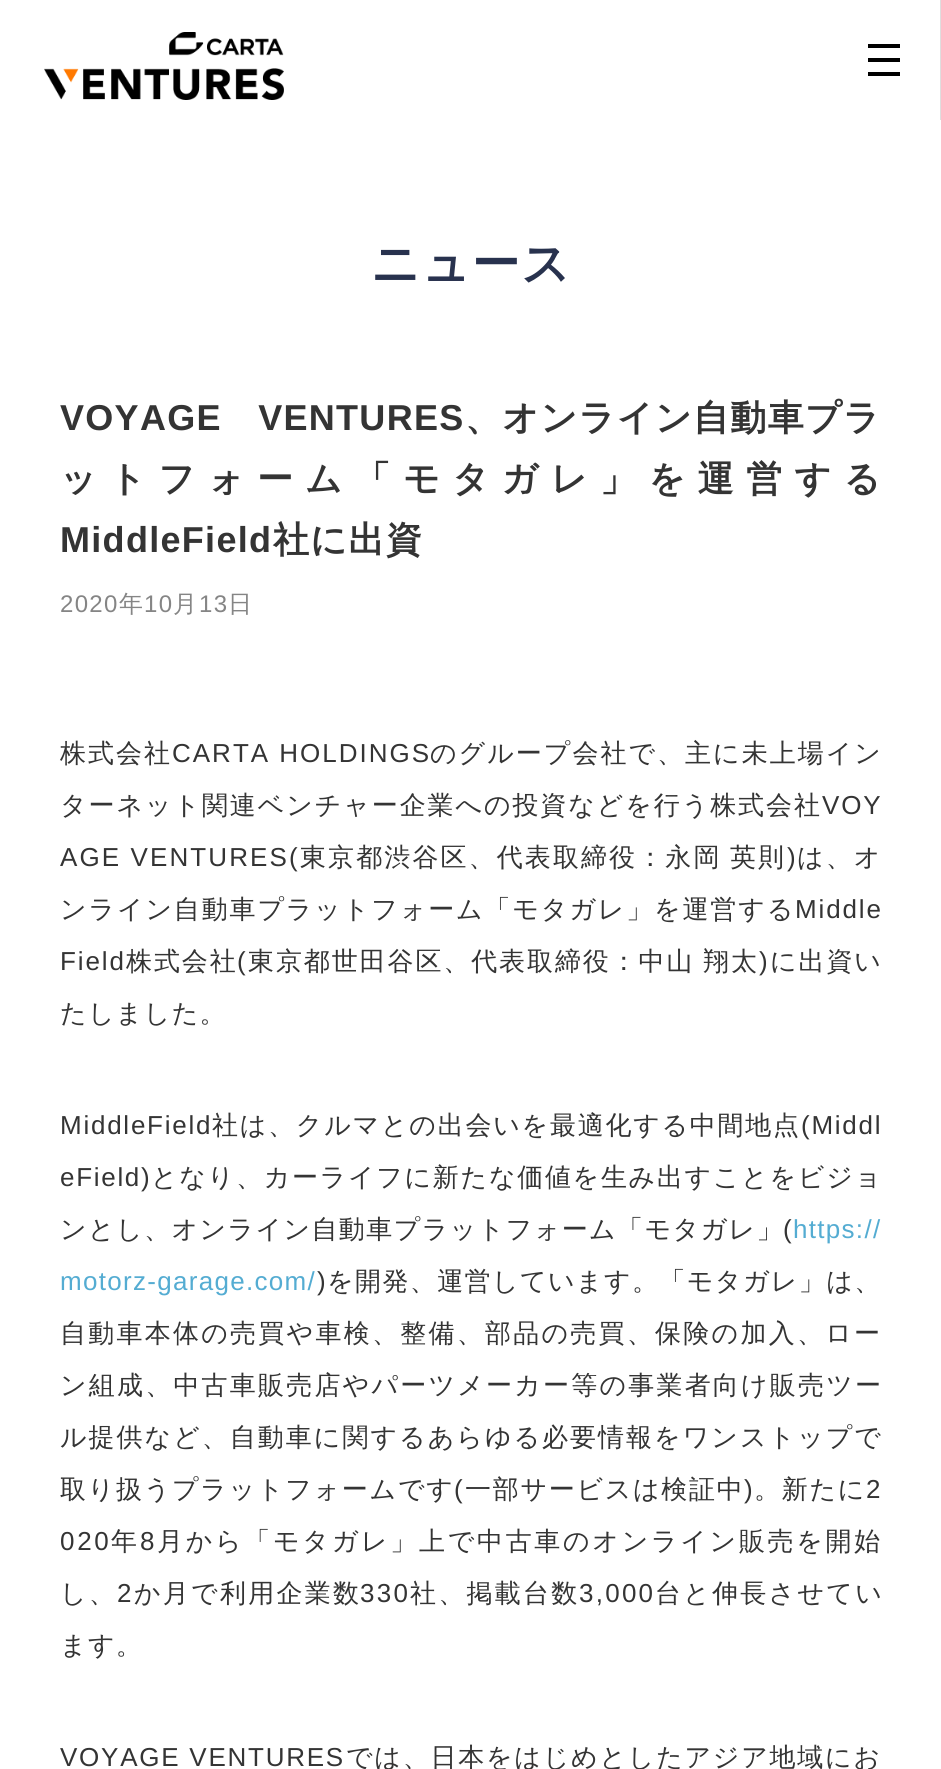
#include <cairo.h>
#include <math.h>
#include <stddef.h>

static cairo_t *ctx;

static void use_color(int r, int g, int b) {
    cairo_set_source_rgb(ctx, r / 255.0, g / 255.0, b / 255.0);
}

static void spaced_text(double x, double y, const char *s, double letter, double word) {
    cairo_move_to(ctx, x, y);
    while (*s) {
        char ch[5] = {0};
        int n = 0;
        do ch[n++] = *s++; while ((*s & 0xC0) == 0x80);
        cairo_show_text(ctx, ch);
        cairo_rel_move_to(ctx, letter + word * (*ch == ' '), 0);
    }
}

static void picture(const char *path, double x, double y, double w, double h) {
    cairo_surface_t *image = cairo_image_surface_create_from_png(path);
    cairo_save(ctx);
    cairo_set_source_surface(ctx, image, x, y);
    cairo_rectangle(ctx, x, y, w, h);
    cairo_fill(ctx);
    cairo_restore(ctx);
    cairo_surface_destroy(image);
}

int main(void) {
    cairo_surface_t *surface = cairo_image_surface_create(CAIRO_FORMAT_RGB24, 941, 1769);
    ctx = cairo_create(surface);
    cairo_font_options_t *options = cairo_font_options_create();
    cairo_font_options_set_hint_metrics(options, CAIRO_HINT_METRICS_OFF);
    cairo_font_options_set_hint_style(options, CAIRO_HINT_STYLE_NONE);
    cairo_set_font_options(ctx, options);
    cairo_set_miter_limit(ctx, 4);
    use_color(255, 255, 255);
    cairo_paint(ctx);
    use_color(222, 222, 222);
    cairo_rectangle(ctx, 940, 0, 1, 120);
    cairo_fill(ctx);
    picture("img1.png", 44, 32, 240, 68);
    use_color(0, 0, 0);
    cairo_rectangle(ctx, 868, 44, 32, 4);
    cairo_fill(ctx);
    cairo_rectangle(ctx, 868, 58, 32, 4);
    cairo_fill(ctx);
    cairo_rectangle(ctx, 868, 72, 32, 4);
    cairo_fill(ctx);
    cairo_select_font_face(ctx, "WenQuanYi Zen Hei", CAIRO_FONT_SLANT_NORMAL, CAIRO_FONT_WEIGHT_BOLD);
    cairo_set_font_size(ctx, 48);
    use_color(40, 50, 78);
    spaced_text(371, 280, "ニュース", 1.3, 0);
    cairo_select_font_face(ctx, "Liberation Sans", CAIRO_FONT_SLANT_NORMAL, CAIRO_FONT_WEIGHT_BOLD);
    cairo_set_font_size(ctx, 36);
    use_color(52, 52, 52);
    spaced_text(60, 430, "VOYAGE VENTURES", 1.3, 25);
    cairo_select_font_face(ctx, "WenQuanYi Zen Hei", CAIRO_FONT_SLANT_NORMAL, CAIRO_FONT_WEIGHT_BOLD);
    spaced_text(465, 430, "、オンライン自動車プラ", 1.3, 0);
    spaced_text(60, 491, "ットフォーム「モタガレ」を運営する", 12.4, 0);
    cairo_select_font_face(ctx, "Liberation Sans", CAIRO_FONT_SLANT_NORMAL, CAIRO_FONT_WEIGHT_BOLD);
    spaced_text(60, 552, "MiddleField", 1.3, 0);
    cairo_select_font_face(ctx, "WenQuanYi Zen Hei", CAIRO_FONT_SLANT_NORMAL, CAIRO_FONT_WEIGHT_BOLD);
    spaced_text(273, 552, "社に出資", 1.3, 0);
    cairo_select_font_face(ctx, "Liberation Sans", CAIRO_FONT_SLANT_NORMAL, CAIRO_FONT_WEIGHT_NORMAL);
    cairo_set_font_size(ctx, 24);
    use_color(133, 133, 133);
    spaced_text(60, 612, "2020", 1.3, 0);
    cairo_select_font_face(ctx, "WenQuanYi Zen Hei Medium", CAIRO_FONT_SLANT_NORMAL, CAIRO_FONT_WEIGHT_NORMAL);
    spaced_text(119, 612, "年", 1.3, 0);
    cairo_select_font_face(ctx, "Liberation Sans", CAIRO_FONT_SLANT_NORMAL, CAIRO_FONT_WEIGHT_NORMAL);
    spaced_text(144, 612, "10", 1.3, 0);
    cairo_select_font_face(ctx, "WenQuanYi Zen Hei Medium", CAIRO_FONT_SLANT_NORMAL, CAIRO_FONT_WEIGHT_NORMAL);
    spaced_text(173, 612, "月", 1.3, 0);
    cairo_select_font_face(ctx, "Liberation Sans", CAIRO_FONT_SLANT_NORMAL, CAIRO_FONT_WEIGHT_NORMAL);
    spaced_text(199, 612, "13", 1.3, 0);
    cairo_select_font_face(ctx, "WenQuanYi Zen Hei Medium", CAIRO_FONT_SLANT_NORMAL, CAIRO_FONT_WEIGHT_NORMAL);
    spaced_text(228, 612, "日", 1.3, 0);
    cairo_set_font_size(ctx, 26);
    use_color(52, 52, 52);
    spaced_text(60, 762, "株式会社", 2, 0);
    cairo_select_font_face(ctx, "Liberation Sans", CAIRO_FONT_SLANT_NORMAL, CAIRO_FONT_WEIGHT_NORMAL);
    spaced_text(172, 762, "CARTA HOLDINGS", 2, 0);
    cairo_select_font_face(ctx, "WenQuanYi Zen Hei Medium", CAIRO_FONT_SLANT_NORMAL, CAIRO_FONT_WEIGHT_NORMAL);
    spaced_text(430, 762, "のグループ会社で、主に未上場イン", 2, 0);
    spaced_text(60, 814, "ターネット関連ベンチャー企業への投資などを行う株式会社", 1.9, 0);
    cairo_select_font_face(ctx, "Liberation Sans", CAIRO_FONT_SLANT_NORMAL, CAIRO_FONT_WEIGHT_NORMAL);
    spaced_text(822, 814, "VOY", 1.9, 0);
    spaced_text(60, 866, "AGE VENTURES(", 2.1, 0);
    cairo_select_font_face(ctx, "WenQuanYi Zen Hei Medium", CAIRO_FONT_SLANT_NORMAL, CAIRO_FONT_WEIGHT_NORMAL);
    spaced_text(300, 866, "東京都渋谷区、代表取締役：永岡", 2.1, 0);
    spaced_text(730, 866, "英則", 2.1, 0);
    cairo_select_font_face(ctx, "Liberation Sans", CAIRO_FONT_SLANT_NORMAL, CAIRO_FONT_WEIGHT_NORMAL);
    spaced_text(787, 866, ")", 2.1, 0);
    cairo_select_font_face(ctx, "WenQuanYi Zen Hei Medium", CAIRO_FONT_SLANT_NORMAL, CAIRO_FONT_WEIGHT_NORMAL);
    spaced_text(797, 866, "は、オ", 2.1, 0);
    spaced_text(60, 918, "ンライン自動車プラットフォーム「モタガレ」を運営する", 1.85, 0);
    cairo_select_font_face(ctx, "Liberation Sans", CAIRO_FONT_SLANT_NORMAL, CAIRO_FONT_WEIGHT_NORMAL);
    spaced_text(795, 918, "Middle", 1.85, 0);
    spaced_text(60, 970, "Field", 1.9, 0);
    cairo_select_font_face(ctx, "WenQuanYi Zen Hei Medium", CAIRO_FONT_SLANT_NORMAL, CAIRO_FONT_WEIGHT_NORMAL);
    spaced_text(126, 970, "株式会社", 1.9, 0);
    cairo_select_font_face(ctx, "Liberation Sans", CAIRO_FONT_SLANT_NORMAL, CAIRO_FONT_WEIGHT_NORMAL);
    spaced_text(237, 970, "(", 1.9, 0);
    cairo_select_font_face(ctx, "WenQuanYi Zen Hei Medium", CAIRO_FONT_SLANT_NORMAL, CAIRO_FONT_WEIGHT_NORMAL);
    spaced_text(248, 970, "東京都世田谷区、代表取締役：中山 翔太", 1.9, -1);
    cairo_select_font_face(ctx, "Liberation Sans", CAIRO_FONT_SLANT_NORMAL, CAIRO_FONT_WEIGHT_NORMAL);
    spaced_text(759, 970, ")", 1.9, 0);
    cairo_select_font_face(ctx, "WenQuanYi Zen Hei Medium", CAIRO_FONT_SLANT_NORMAL, CAIRO_FONT_WEIGHT_NORMAL);
    spaced_text(770, 970, "に出資い", 1.9, 0);
    spaced_text(60, 1022, "たしました。", 1.3, 0);
    cairo_select_font_face(ctx, "Liberation Sans", CAIRO_FONT_SLANT_NORMAL, CAIRO_FONT_WEIGHT_NORMAL);
    spaced_text(60, 1134, "MiddleField", 1.75, 0);
    cairo_select_font_face(ctx, "WenQuanYi Zen Hei Medium", CAIRO_FONT_SLANT_NORMAL, CAIRO_FONT_WEIGHT_NORMAL);
    spaced_text(212, 1134, "社は、クルマとの出会いを最適化する中間地点", 1.75, 0);
    cairo_select_font_face(ctx, "Liberation Sans", CAIRO_FONT_SLANT_NORMAL, CAIRO_FONT_WEIGHT_NORMAL);
    spaced_text(801, 1134, "(Middl", 1.75, 0);
    spaced_text(60, 1186, "eField)", 1.7, 0);
    cairo_select_font_face(ctx, "WenQuanYi Zen Hei Medium", CAIRO_FONT_SLANT_NORMAL, CAIRO_FONT_WEIGHT_NORMAL);
    spaced_text(151, 1186, "となり、カーライフに新たな価値を生み出すことをビジョ", 1.7, 0);
    spaced_text(60, 1238, "ンとし、オンライン自動車プラットフォーム「モタガレ」", 1.4, 0);
    cairo_select_font_face(ctx, "Liberation Sans", CAIRO_FONT_SLANT_NORMAL, CAIRO_FONT_WEIGHT_NORMAL);
    spaced_text(783, 1238, "(", 1.4, 0);
    use_color(84, 172, 210);
    spaced_text(793, 1238, "https://", 1.3, 0);
    spaced_text(60, 1290, "motorz-garage.com/", 1.3, 0);
    use_color(52, 52, 52);
    spaced_text(317, 1290, ")", 1.4, 0);
    cairo_select_font_face(ctx, "WenQuanYi Zen Hei Medium", CAIRO_FONT_SLANT_NORMAL, CAIRO_FONT_WEIGHT_NORMAL);
    spaced_text(327, 1290, "を開発、運営しています。「モタガレ」は、", 1.4, 0);
    spaced_text(60, 1342, "自動車本体の売買や車検、整備、部品の売買、保険の加入、ロー", 2.25, 0);
    spaced_text(60, 1394, "ン組成、中古車販売店やパーツメーカー等の事業者向け販売ツー", 2.2, 0);
    spaced_text(60, 1446, "ル提供など、自動車に関するあらゆる必要情報をワンストップで", 2, 0);
    spaced_text(60, 1498, "取り扱うプラットフォームです", 1.7, 0);
    cairo_select_font_face(ctx, "Liberation Sans", CAIRO_FONT_SLANT_NORMAL, CAIRO_FONT_WEIGHT_NORMAL);
    spaced_text(454, 1498, "(", 1.7, 0);
    cairo_select_font_face(ctx, "WenQuanYi Zen Hei Medium", CAIRO_FONT_SLANT_NORMAL, CAIRO_FONT_WEIGHT_NORMAL);
    spaced_text(465, 1498, "一部サービスは検証中", 1.7, 0);
    cairo_select_font_face(ctx, "Liberation Sans", CAIRO_FONT_SLANT_NORMAL, CAIRO_FONT_WEIGHT_NORMAL);
    spaced_text(744, 1498, ")", 1.7, 0);
    cairo_select_font_face(ctx, "WenQuanYi Zen Hei Medium", CAIRO_FONT_SLANT_NORMAL, CAIRO_FONT_WEIGHT_NORMAL);
    spaced_text(754, 1498, "。新たに", 1.7, 0);
    cairo_select_font_face(ctx, "Liberation Sans", CAIRO_FONT_SLANT_NORMAL, CAIRO_FONT_WEIGHT_NORMAL);
    spaced_text(866, 1498, "2", 1.7, 0);
    spaced_text(60, 1550, "020", 2.7, 0);
    cairo_select_font_face(ctx, "WenQuanYi Zen Hei Medium", CAIRO_FONT_SLANT_NORMAL, CAIRO_FONT_WEIGHT_NORMAL);
    spaced_text(111, 1550, "年", 2.7, 0);
    cairo_select_font_face(ctx, "Liberation Sans", CAIRO_FONT_SLANT_NORMAL, CAIRO_FONT_WEIGHT_NORMAL);
    spaced_text(140, 1550, "8", 2.7, 0);
    cairo_select_font_face(ctx, "WenQuanYi Zen Hei Medium", CAIRO_FONT_SLANT_NORMAL, CAIRO_FONT_WEIGHT_NORMAL);
    spaced_text(157, 1550, "月から「モタガレ」上で中古車のオンライン販売を開始", 2.7, 0);
    spaced_text(60, 1602, "し、", 2.25, 0);
    cairo_select_font_face(ctx, "Liberation Sans", CAIRO_FONT_SLANT_NORMAL, CAIRO_FONT_WEIGHT_NORMAL);
    spaced_text(117, 1602, "2", 2.25, 0);
    cairo_select_font_face(ctx, "WenQuanYi Zen Hei Medium", CAIRO_FONT_SLANT_NORMAL, CAIRO_FONT_WEIGHT_NORMAL);
    spaced_text(134, 1602, "か月で利用企業数", 2.25, 0);
    cairo_select_font_face(ctx, "Liberation Sans", CAIRO_FONT_SLANT_NORMAL, CAIRO_FONT_WEIGHT_NORMAL);
    spaced_text(360, 1602, "330", 2.25, 0);
    cairo_select_font_face(ctx, "WenQuanYi Zen Hei Medium", CAIRO_FONT_SLANT_NORMAL, CAIRO_FONT_WEIGHT_NORMAL);
    spaced_text(410, 1602, "社、掲載台数", 2.25, 0);
    cairo_select_font_face(ctx, "Liberation Sans", CAIRO_FONT_SLANT_NORMAL, CAIRO_FONT_WEIGHT_NORMAL);
    spaced_text(579, 1602, "3,000", 2.25, 0);
    cairo_select_font_face(ctx, "WenQuanYi Zen Hei Medium", CAIRO_FONT_SLANT_NORMAL, CAIRO_FONT_WEIGHT_NORMAL);
    spaced_text(655, 1602, "台と伸長させてい", 2.25, 0);
    spaced_text(60, 1654, "ます。", 1.3, 0);
    cairo_select_font_face(ctx, "Liberation Sans", CAIRO_FONT_SLANT_NORMAL, CAIRO_FONT_WEIGHT_NORMAL);
    spaced_text(60, 1766, "VOYAGE VENTURES", 1.75, 0);
    cairo_select_font_face(ctx, "WenQuanYi Zen Hei Medium", CAIRO_FONT_SLANT_NORMAL, CAIRO_FONT_WEIGHT_NORMAL);
    spaced_text(346, 1766, "では、日本をはじめとしたアジア地域にお", 1.75, 0);
    cairo_surface_write_to_png(surface, "result.png");
    cairo_font_options_destroy(options);
    cairo_destroy(ctx);
    cairo_surface_destroy(surface);
    return 0;
}
